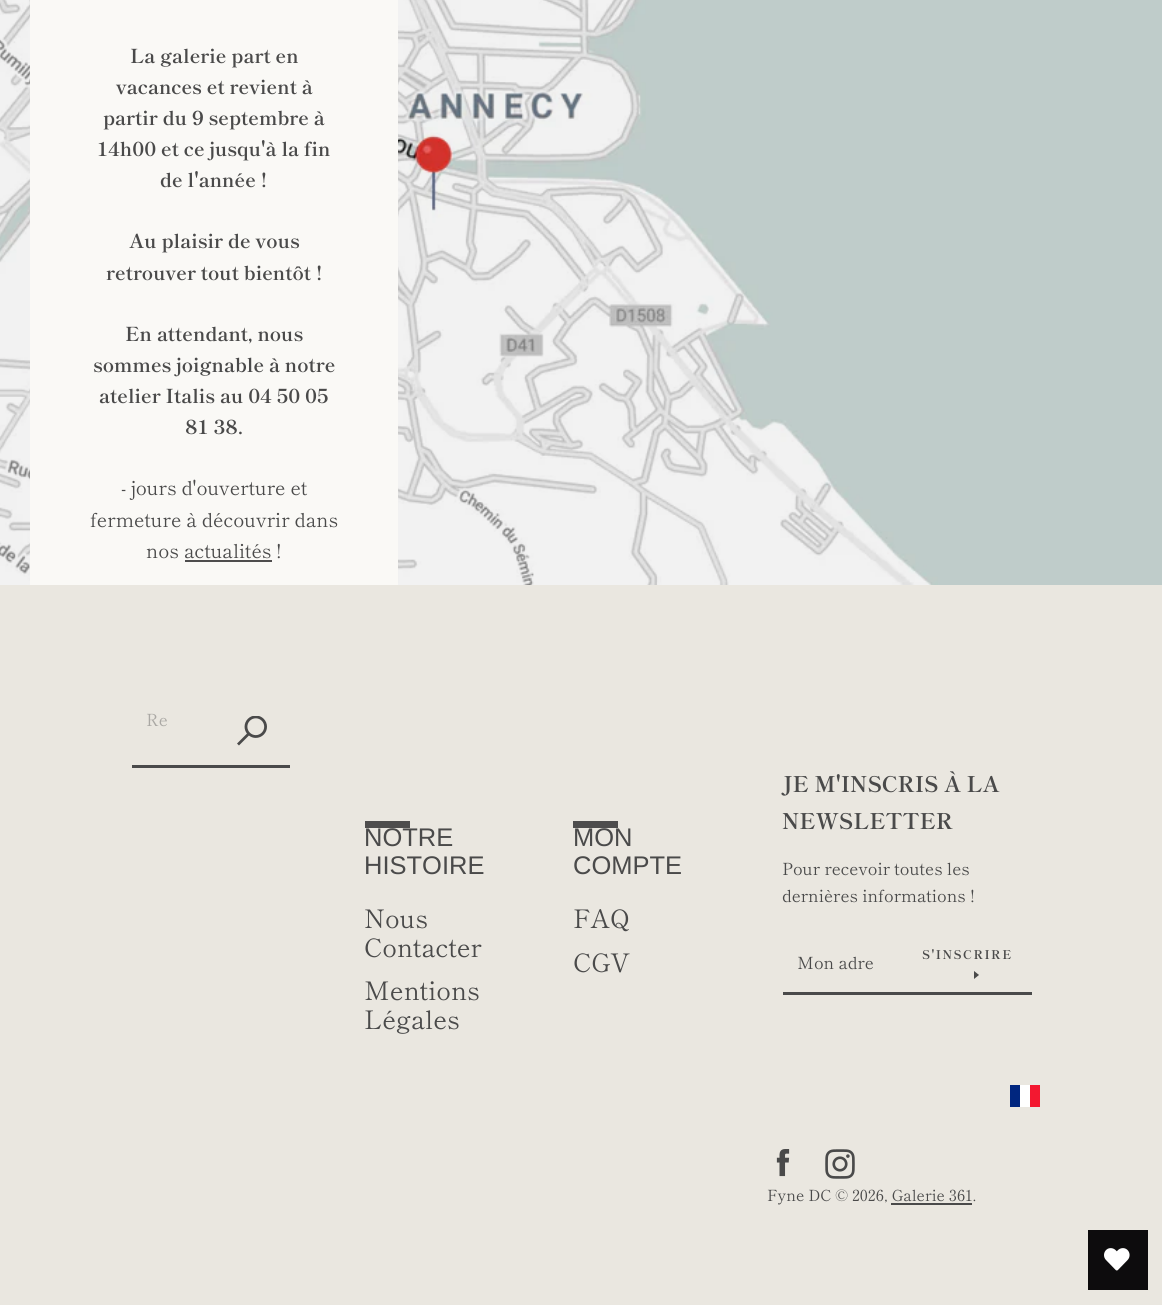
#include <cairo.h>
#include <math.h>
#include <stddef.h>

static cairo_t *ctx;

static void use_color(int r, int g, int b) {
    cairo_set_source_rgb(ctx, r / 255.0, g / 255.0, b / 255.0);
}

static void spaced_text(double x, double y, const char *s, double letter, double word) {
    cairo_move_to(ctx, x, y);
    while (*s) {
        char ch[5] = {0};
        int n = 0;
        do ch[n++] = *s++; while ((*s & 0xC0) == 0x80);
        cairo_show_text(ctx, ch);
        cairo_rel_move_to(ctx, letter + word * (*ch == ' '), 0);
    }
}

static void picture(const char *path, double x, double y, double w, double h) {
    cairo_surface_t *image = cairo_image_surface_create_from_png(path);
    cairo_save(ctx);
    cairo_set_source_surface(ctx, image, x, y);
    cairo_rectangle(ctx, x, y, w, h);
    cairo_fill(ctx);
    cairo_restore(ctx);
    cairo_surface_destroy(image);
}

int main(void) {
    cairo_surface_t *surface = cairo_image_surface_create(CAIRO_FORMAT_RGB24, 1162, 1305);
    ctx = cairo_create(surface);
    cairo_font_options_t *options = cairo_font_options_create();
    cairo_font_options_set_hint_metrics(options, CAIRO_HINT_METRICS_OFF);
    cairo_font_options_set_hint_style(options, CAIRO_HINT_STYLE_NONE);
    cairo_set_font_options(ctx, options);
    cairo_set_miter_limit(ctx, 4);
    use_color(255, 255, 255);
    cairo_paint(ctx);
    picture("img1.png", 0, 0, 1162, 585);
    use_color(250, 249, 246);
    cairo_rectangle(ctx, 30, 0, 368, 585);
    cairo_fill(ctx);
    cairo_select_font_face(ctx, "Shippori Mincho", CAIRO_FONT_SLANT_NORMAL, CAIRO_FONT_WEIGHT_BOLD);
    cairo_set_font_size(ctx, 19.25);
    use_color(74, 74, 74);
    cairo_move_to(ctx, 130, 63);
    cairo_show_text(ctx, "La galerie part en");
    cairo_move_to(ctx, 116, 94);
    cairo_show_text(ctx, "vacances et revient à");
    cairo_move_to(ctx, 103, 125);
    cairo_show_text(ctx, "partir du 9 septembre à");
    cairo_move_to(ctx, 97, 156);
    cairo_show_text(ctx, "14h00 et ce jusqu'à la fin");
    cairo_move_to(ctx, 160, 187);
    cairo_show_text(ctx, "de l'année !");
    cairo_move_to(ctx, 129, 248);
    cairo_show_text(ctx, "Au plaisir de vous");
    cairo_move_to(ctx, 106, 280);
    cairo_show_text(ctx, "retrouver tout bientôt !");
    cairo_move_to(ctx, 125, 341);
    cairo_show_text(ctx, "En attendant, nous");
    cairo_move_to(ctx, 93, 372);
    cairo_show_text(ctx, "sommes joignable à notre");
    cairo_move_to(ctx, 99, 403);
    cairo_show_text(ctx, "atelier Italis au 04 50 05");
    cairo_move_to(ctx, 185, 434);
    cairo_show_text(ctx, "81 38.");
    cairo_select_font_face(ctx, "Shippori Mincho", CAIRO_FONT_SLANT_NORMAL, CAIRO_FONT_WEIGHT_NORMAL);
    cairo_move_to(ctx, 121, 495);
    cairo_show_text(ctx, "- jours d'ouverture et");
    cairo_move_to(ctx, 90, 527);
    cairo_show_text(ctx, "fermeture à découvrir dans");
    cairo_move_to(ctx, 146, 558);
    cairo_show_text(ctx, "nos");
    cairo_move_to(ctx, 184, 558);
    cairo_show_text(ctx, "actualités");
    use_color(78, 77, 77);
    cairo_rectangle(ctx, 185, 560, 87, 2);
    cairo_fill(ctx);
    use_color(74, 74, 74);
    cairo_move_to(ctx, 276, 558);
    cairo_show_text(ctx, "!");
    use_color(234, 231, 224);
    cairo_rectangle(ctx, 0, 585, 1162, 720);
    cairo_fill(ctx);
    use_color(74, 74, 74);
    cairo_rectangle(ctx, 132, 765, 158, 3);
    cairo_fill(ctx);
    cairo_set_font_size(ctx, 16.75);
    use_color(170, 168, 164);
    cairo_move_to(ctx, 146, 726);
    cairo_show_text(ctx, "Re");
    picture("img2.png", 237, 716, 30, 30);
    use_color(78, 77, 77);
    cairo_rectangle(ctx, 365, 821, 45, 7);
    cairo_fill(ctx);
    cairo_select_font_face(ctx, "Liberation Sans", CAIRO_FONT_SLANT_NORMAL, CAIRO_FONT_WEIGHT_NORMAL);
    cairo_set_font_size(ctx, 25.5);
    use_color(74, 74, 74);
    cairo_move_to(ctx, 364, 846);
    cairo_show_text(ctx, "NOTRE");
    cairo_move_to(ctx, 364, 874);
    cairo_show_text(ctx, "HISTOIRE");
    cairo_select_font_face(ctx, "Shippori Mincho", CAIRO_FONT_SLANT_NORMAL, CAIRO_FONT_WEIGHT_NORMAL);
    cairo_move_to(ctx, 364, 928);
    cairo_show_text(ctx, "Nous");
    cairo_move_to(ctx, 364, 957);
    cairo_show_text(ctx, "Contacter");
    cairo_move_to(ctx, 364, 1000);
    cairo_show_text(ctx, "Mentions");
    cairo_move_to(ctx, 364, 1029);
    cairo_show_text(ctx, "Légales");
    use_color(78, 77, 77);
    cairo_rectangle(ctx, 573, 821, 45, 7);
    cairo_fill(ctx);
    cairo_select_font_face(ctx, "Liberation Sans", CAIRO_FONT_SLANT_NORMAL, CAIRO_FONT_WEIGHT_NORMAL);
    use_color(74, 74, 74);
    cairo_move_to(ctx, 573, 846);
    cairo_show_text(ctx, "MON");
    cairo_move_to(ctx, 573, 874);
    cairo_show_text(ctx, "COMPTE");
    cairo_select_font_face(ctx, "Shippori Mincho", CAIRO_FONT_SLANT_NORMAL, CAIRO_FONT_WEIGHT_NORMAL);
    cairo_move_to(ctx, 573, 928);
    cairo_show_text(ctx, "FAQ");
    cairo_move_to(ctx, 573, 972);
    cairo_show_text(ctx, "CGV");
    cairo_select_font_face(ctx, "Shippori Mincho", CAIRO_FONT_SLANT_NORMAL, CAIRO_FONT_WEIGHT_BOLD);
    cairo_set_font_size(ctx, 21.6);
    cairo_move_to(ctx, 782, 792);
    cairo_show_text(ctx, "JE M'INSCRIS À LA");
    cairo_move_to(ctx, 782, 829);
    cairo_show_text(ctx, "NEWSLETTER");
    cairo_select_font_face(ctx, "Shippori Mincho", CAIRO_FONT_SLANT_NORMAL, CAIRO_FONT_WEIGHT_NORMAL);
    cairo_set_font_size(ctx, 16.75);
    cairo_move_to(ctx, 782, 875);
    cairo_show_text(ctx, "Pour recevoir toutes les");
    cairo_move_to(ctx, 782, 902);
    cairo_show_text(ctx, "dernières informations !");
    cairo_rectangle(ctx, 783, 992, 249, 3);
    cairo_fill(ctx);
    cairo_select_font_face(ctx, "Shippori Mincho", CAIRO_FONT_SLANT_NORMAL, CAIRO_FONT_WEIGHT_BOLD);
    cairo_set_font_size(ctx, 12);
    spaced_text(922, 959, "S'INSCRIRE", 1.5, 0);
    cairo_new_path(ctx);
    cairo_move_to(ctx, 979, 975);
    cairo_line_to(ctx, 974, 979);
    cairo_line_to(ctx, 974, 971);
    cairo_close_path(ctx);
    cairo_fill(ctx);
    cairo_select_font_face(ctx, "Shippori Mincho", CAIRO_FONT_SLANT_NORMAL, CAIRO_FONT_WEIGHT_NORMAL);
    cairo_set_font_size(ctx, 16.75);
    cairo_move_to(ctx, 797, 969);
    cairo_show_text(ctx, "Mon adre");
    use_color(0, 38, 127);
    cairo_rectangle(ctx, 1010, 1085, 10, 22);
    cairo_fill(ctx);
    use_color(255, 255, 255);
    cairo_rectangle(ctx, 1020, 1085, 10, 22);
    cairo_fill(ctx);
    use_color(243, 24, 48);
    cairo_rectangle(ctx, 1030, 1085, 10, 22);
    cairo_fill(ctx);
    picture("img3.png", 776, 1149, 14, 28);
    picture("img4.png", 825, 1149, 30, 30);
    cairo_set_font_size(ctx, 15.4);
    use_color(74, 74, 74);
    cairo_move_to(ctx, 767, 1201);
    cairo_show_text(ctx, "Fyne DC © 2026, Galerie 361.");
    cairo_rectangle(ctx, 891, 1203, 81, 2);
    cairo_fill(ctx);
    use_color(13, 12, 13);
    cairo_rectangle(ctx, 1088, 1230, 60, 60);
    cairo_fill(ctx);
    picture("img5.png", 1104, 1248, 26, 23);
    cairo_surface_write_to_png(surface, "result.png");
    cairo_font_options_destroy(options);
    cairo_destroy(ctx);
    cairo_surface_destroy(surface);
    return 0;
}
